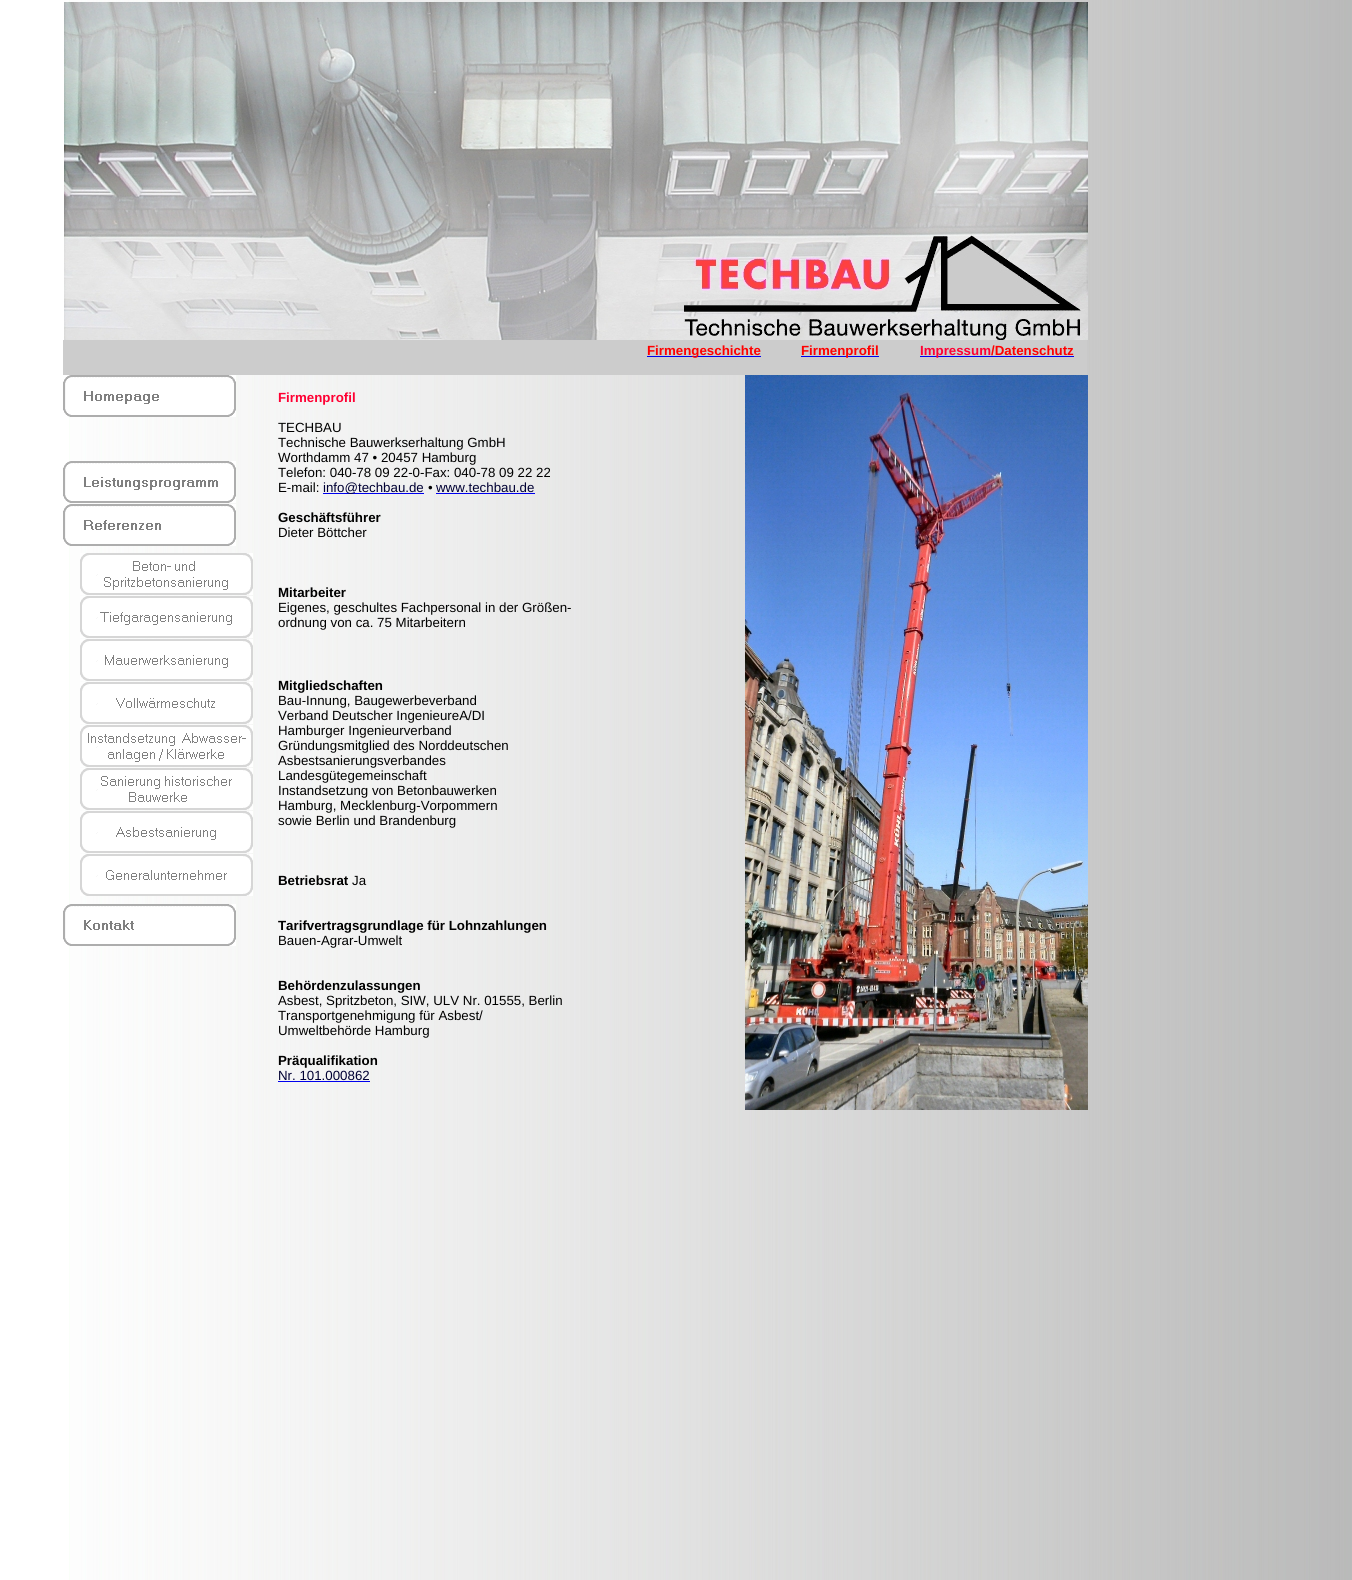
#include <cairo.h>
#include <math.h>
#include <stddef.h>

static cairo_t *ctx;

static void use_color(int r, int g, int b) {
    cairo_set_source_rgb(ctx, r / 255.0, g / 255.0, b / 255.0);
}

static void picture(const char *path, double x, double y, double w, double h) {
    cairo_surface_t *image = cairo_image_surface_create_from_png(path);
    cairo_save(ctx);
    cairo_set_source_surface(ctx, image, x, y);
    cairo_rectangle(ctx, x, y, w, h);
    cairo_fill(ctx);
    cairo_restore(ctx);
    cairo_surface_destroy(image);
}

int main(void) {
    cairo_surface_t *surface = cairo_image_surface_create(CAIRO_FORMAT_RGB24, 1352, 1580);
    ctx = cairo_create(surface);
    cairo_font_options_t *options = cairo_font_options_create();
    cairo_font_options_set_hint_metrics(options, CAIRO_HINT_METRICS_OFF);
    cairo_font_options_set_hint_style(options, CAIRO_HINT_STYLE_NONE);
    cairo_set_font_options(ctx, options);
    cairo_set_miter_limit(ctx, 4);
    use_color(255, 255, 255);
    cairo_paint(ctx);
    picture("img1.png", 69, 0, 1283, 1580);
    picture("img2.png", 64, 2, 1024, 338);
    use_color(204, 204, 204);
    cairo_rectangle(ctx, 63, 340, 1024, 35);
    cairo_fill(ctx);
    use_color(0, 0, 238);
    cairo_rectangle(ctx, 647, 356, 114, 1);
    cairo_fill(ctx);
    cairo_select_font_face(ctx, "Liberation Sans", CAIRO_FONT_SLANT_NORMAL, CAIRO_FONT_WEIGHT_BOLD);
    cairo_set_font_size(ctx, 13.3);
    use_color(255, 0, 0);
    cairo_move_to(ctx, 647, 355);
    cairo_show_text(ctx, "Firmengeschichte");
    use_color(0, 0, 238);
    cairo_rectangle(ctx, 801, 356, 78, 1);
    cairo_fill(ctx);
    use_color(255, 0, 0);
    cairo_move_to(ctx, 801, 355);
    cairo_show_text(ctx, "Firmenprofil");
    use_color(0, 0, 238);
    cairo_rectangle(ctx, 920, 356, 154, 1);
    cairo_fill(ctx);
    use_color(255, 0, 51);
    cairo_move_to(ctx, 920, 355);
    cairo_show_text(ctx, "Impressum");
    use_color(255, 0, 0);
    cairo_move_to(ctx, 991, 355);
    cairo_show_text(ctx, "/Datenschutz");
    picture("img3.png", 63, 375, 173, 42);
    picture("img4.png", 63, 461, 173, 42);
    picture("img5.png", 63, 504, 173, 42);
    picture("img6.png", 80, 553, 173, 42);
    picture("img7.png", 80, 596, 173, 42);
    picture("img8.png", 80, 639, 173, 42);
    picture("img9.png", 80, 682, 173, 42);
    picture("img10.png", 80, 725, 173, 42);
    picture("img11.png", 80, 768, 173, 42);
    picture("img12.png", 80, 811, 173, 42);
    picture("img13.png", 80, 854, 173, 42);
    picture("img14.png", 63, 904, 173, 42);
    use_color(255, 0, 51);
    cairo_move_to(ctx, 278, 402);
    cairo_show_text(ctx, "Firmenprofil");
    cairo_select_font_face(ctx, "Liberation Sans", CAIRO_FONT_SLANT_NORMAL, CAIRO_FONT_WEIGHT_NORMAL);
    use_color(0, 0, 0);
    cairo_move_to(ctx, 278, 432);
    cairo_show_text(ctx, "TECHBAU");
    cairo_move_to(ctx, 278, 447);
    cairo_show_text(ctx, "Technische Bauwerkserhaltung GmbH");
    cairo_move_to(ctx, 278, 462);
    cairo_show_text(ctx, "Worthdamm 47 • 20457 Hamburg");
    cairo_move_to(ctx, 278, 477);
    cairo_show_text(ctx, "Telefon: 040-78 09 22-0-Fax: 040-78 09 22 22");
    cairo_move_to(ctx, 278, 492);
    cairo_show_text(ctx, "E-mail:");
    use_color(0, 0, 238);
    cairo_rectangle(ctx, 323, 493, 101, 1);
    cairo_fill(ctx);
    use_color(0, 0, 51);
    cairo_move_to(ctx, 323, 492);
    cairo_show_text(ctx, "info@techbau.de");
    use_color(0, 0, 0);
    cairo_move_to(ctx, 428, 492);
    cairo_show_text(ctx, "•");
    use_color(0, 0, 51);
    cairo_move_to(ctx, 436, 492);
    cairo_show_text(ctx, "www.techbau.de");
    use_color(0, 0, 238);
    cairo_rectangle(ctx, 436, 493, 99, 1);
    cairo_fill(ctx);
    cairo_select_font_face(ctx, "Liberation Sans", CAIRO_FONT_SLANT_NORMAL, CAIRO_FONT_WEIGHT_BOLD);
    use_color(0, 0, 0);
    cairo_move_to(ctx, 278, 522);
    cairo_show_text(ctx, "Geschäftsführer");
    cairo_select_font_face(ctx, "Liberation Sans", CAIRO_FONT_SLANT_NORMAL, CAIRO_FONT_WEIGHT_NORMAL);
    cairo_move_to(ctx, 278, 537);
    cairo_show_text(ctx, "Dieter Böttcher");
    cairo_select_font_face(ctx, "Liberation Sans", CAIRO_FONT_SLANT_NORMAL, CAIRO_FONT_WEIGHT_BOLD);
    cairo_move_to(ctx, 278, 597);
    cairo_show_text(ctx, "Mitarbeiter");
    cairo_select_font_face(ctx, "Liberation Sans", CAIRO_FONT_SLANT_NORMAL, CAIRO_FONT_WEIGHT_NORMAL);
    cairo_move_to(ctx, 278, 612);
    cairo_show_text(ctx, "Eigenes, geschultes Fachpersonal in der Größen-");
    cairo_move_to(ctx, 278, 627);
    cairo_show_text(ctx, "ordnung von ca. 75 Mitarbeitern");
    cairo_select_font_face(ctx, "Liberation Sans", CAIRO_FONT_SLANT_NORMAL, CAIRO_FONT_WEIGHT_BOLD);
    cairo_move_to(ctx, 278, 690);
    cairo_show_text(ctx, "Mitgliedschaften");
    cairo_select_font_face(ctx, "Liberation Sans", CAIRO_FONT_SLANT_NORMAL, CAIRO_FONT_WEIGHT_NORMAL);
    cairo_move_to(ctx, 278, 705);
    cairo_show_text(ctx, "Bau-Innung, Baugewerbeverband");
    cairo_move_to(ctx, 278, 720);
    cairo_show_text(ctx, "Verband Deutscher IngenieureA/DI");
    cairo_move_to(ctx, 278, 735);
    cairo_show_text(ctx, "Hamburger Ingenieurverband");
    cairo_move_to(ctx, 278, 750);
    cairo_show_text(ctx, "Gründungsmitglied des Norddeutschen");
    cairo_move_to(ctx, 278, 765);
    cairo_show_text(ctx, "Asbestsanierungsverbandes");
    cairo_move_to(ctx, 278, 780);
    cairo_show_text(ctx, "Landesgütegemeinschaft");
    cairo_move_to(ctx, 278, 795);
    cairo_show_text(ctx, "Instandsetzung von Betonbauwerken");
    cairo_move_to(ctx, 278, 810);
    cairo_show_text(ctx, "Hamburg, Mecklenburg-Vorpommern");
    cairo_move_to(ctx, 278, 825);
    cairo_show_text(ctx, "sowie Berlin und Brandenburg");
    cairo_select_font_face(ctx, "Liberation Sans", CAIRO_FONT_SLANT_NORMAL, CAIRO_FONT_WEIGHT_BOLD);
    cairo_move_to(ctx, 278, 885);
    cairo_show_text(ctx, "Betriebsrat");
    cairo_select_font_face(ctx, "Liberation Sans", CAIRO_FONT_SLANT_NORMAL, CAIRO_FONT_WEIGHT_NORMAL);
    cairo_move_to(ctx, 352, 885);
    cairo_show_text(ctx, "Ja");
    cairo_select_font_face(ctx, "Liberation Sans", CAIRO_FONT_SLANT_NORMAL, CAIRO_FONT_WEIGHT_BOLD);
    cairo_move_to(ctx, 278, 930);
    cairo_show_text(ctx, "Tarifvertragsgrundlage für Lohnzahlungen");
    cairo_select_font_face(ctx, "Liberation Sans", CAIRO_FONT_SLANT_NORMAL, CAIRO_FONT_WEIGHT_NORMAL);
    cairo_move_to(ctx, 278, 945);
    cairo_show_text(ctx, "Bauen-Agrar-Umwelt");
    cairo_select_font_face(ctx, "Liberation Sans", CAIRO_FONT_SLANT_NORMAL, CAIRO_FONT_WEIGHT_BOLD);
    cairo_move_to(ctx, 278, 990);
    cairo_show_text(ctx, "Behördenzulassungen");
    cairo_select_font_face(ctx, "Liberation Sans", CAIRO_FONT_SLANT_NORMAL, CAIRO_FONT_WEIGHT_NORMAL);
    cairo_move_to(ctx, 278, 1005);
    cairo_show_text(ctx, "Asbest, Spritzbeton, SIW, ULV Nr. 01555, Berlin");
    cairo_move_to(ctx, 278, 1020);
    cairo_show_text(ctx, "Transportgenehmigung für Asbest/");
    cairo_move_to(ctx, 278, 1035);
    cairo_show_text(ctx, "Umweltbehörde Hamburg");
    cairo_select_font_face(ctx, "Liberation Sans", CAIRO_FONT_SLANT_NORMAL, CAIRO_FONT_WEIGHT_BOLD);
    cairo_move_to(ctx, 278, 1065);
    cairo_show_text(ctx, "Präqualifikation");
    cairo_select_font_face(ctx, "Liberation Sans", CAIRO_FONT_SLANT_NORMAL, CAIRO_FONT_WEIGHT_NORMAL);
    use_color(0, 0, 51);
    cairo_move_to(ctx, 278, 1080);
    cairo_show_text(ctx, "Nr. 101.000862");
    use_color(0, 0, 238);
    cairo_rectangle(ctx, 278, 1081, 92, 1);
    cairo_fill(ctx);
    picture("img15.png", 745, 375, 343, 735);
    cairo_surface_write_to_png(surface, "result.png");
    cairo_font_options_destroy(options);
    cairo_destroy(ctx);
    cairo_surface_destroy(surface);
    return 0;
}
